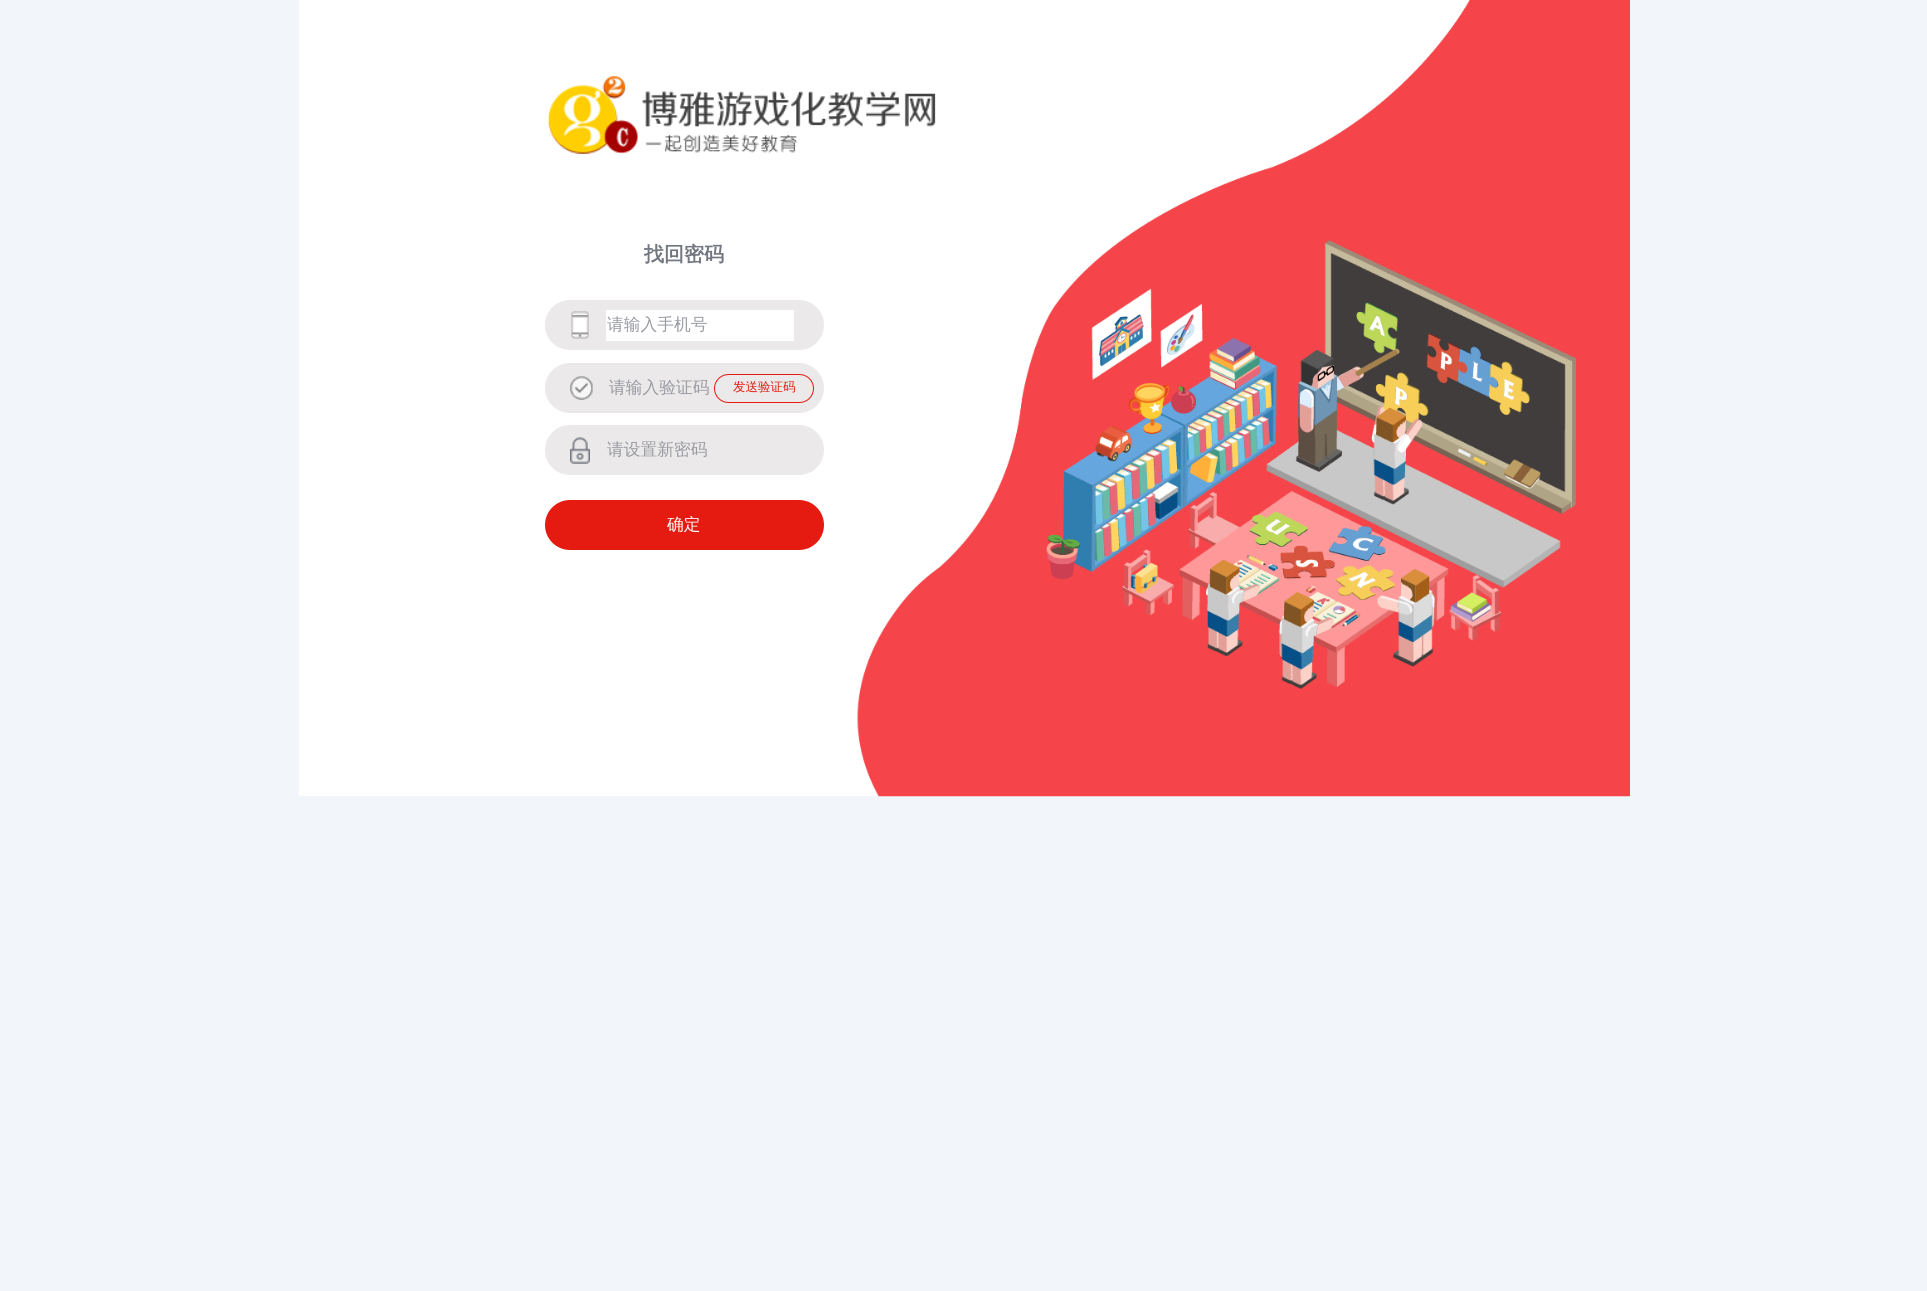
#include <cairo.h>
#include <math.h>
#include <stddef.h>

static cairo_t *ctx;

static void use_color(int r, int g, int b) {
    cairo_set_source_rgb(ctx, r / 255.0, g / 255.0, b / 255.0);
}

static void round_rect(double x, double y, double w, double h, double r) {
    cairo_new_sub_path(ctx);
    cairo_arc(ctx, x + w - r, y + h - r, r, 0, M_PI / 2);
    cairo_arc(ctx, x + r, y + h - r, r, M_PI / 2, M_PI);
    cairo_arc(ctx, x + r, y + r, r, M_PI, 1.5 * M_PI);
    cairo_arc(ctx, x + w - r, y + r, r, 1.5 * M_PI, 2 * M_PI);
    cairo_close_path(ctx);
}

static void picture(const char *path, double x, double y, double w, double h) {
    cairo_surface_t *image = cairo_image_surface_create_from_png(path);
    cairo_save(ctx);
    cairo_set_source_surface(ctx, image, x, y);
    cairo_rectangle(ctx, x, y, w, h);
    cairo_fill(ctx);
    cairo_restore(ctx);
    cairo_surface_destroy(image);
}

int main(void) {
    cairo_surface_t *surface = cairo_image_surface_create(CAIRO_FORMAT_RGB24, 1927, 1291);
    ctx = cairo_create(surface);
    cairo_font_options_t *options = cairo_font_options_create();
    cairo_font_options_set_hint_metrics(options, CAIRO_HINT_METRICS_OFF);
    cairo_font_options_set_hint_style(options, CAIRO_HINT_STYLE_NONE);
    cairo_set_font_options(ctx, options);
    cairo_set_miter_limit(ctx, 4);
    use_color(242, 245, 249);
    cairo_paint(ctx);
    use_color(255, 255, 255);
    cairo_rectangle(ctx, 299, 0, 1171, 796);
    cairo_fill(ctx);
    picture("img1.png", 857, 0, 773, 797);
    picture("img2.png", 548, 76, 388, 78);
    cairo_select_font_face(ctx, "WenQuanYi Zen Hei", CAIRO_FONT_SLANT_NORMAL, CAIRO_FONT_WEIGHT_BOLD);
    cairo_set_font_size(ctx, 20);
    use_color(115, 119, 129);
    cairo_move_to(ctx, 644, 261);
    cairo_show_text(ctx, "找回密码");
    use_color(235, 233, 233);
    round_rect(545, 300, 279, 50, 25);
    cairo_fill(ctx);
    picture("img3.png", 571, 311, 18, 28);
    use_color(255, 255, 255);
    cairo_rectangle(ctx, 606, 310, 188, 31);
    cairo_fill(ctx);
    cairo_select_font_face(ctx, "WenQuanYi Zen Hei Medium", CAIRO_FONT_SLANT_NORMAL, CAIRO_FONT_WEIGHT_NORMAL);
    cairo_set_font_size(ctx, 16.75);
    use_color(153, 155, 162);
    cairo_move_to(ctx, 607, 330);
    cairo_show_text(ctx, "请输入手机号");
    use_color(235, 233, 233);
    round_rect(545, 363, 279, 50, 25);
    cairo_fill(ctx);
    picture("img4.png", 570, 376, 23, 24);
    use_color(153, 155, 162);
    cairo_move_to(ctx, 609, 393);
    cairo_show_text(ctx, "请输入验证码");
    round_rect(714.5, 374.5, 99, 28, 14);
    use_color(229, 26, 17);
    cairo_set_line_width(ctx, 1);
    cairo_stroke(ctx);
    cairo_set_font_size(ctx, 12.5);
    cairo_move_to(ctx, 733, 391);
    cairo_show_text(ctx, "发送验证码");
    use_color(235, 233, 233);
    round_rect(545, 425, 279, 50, 25);
    cairo_fill(ctx);
    picture("img5.png", 570, 437, 20, 27);
    cairo_set_font_size(ctx, 16.75);
    use_color(153, 155, 162);
    cairo_move_to(ctx, 607, 455);
    cairo_show_text(ctx, "请设置新密码");
    use_color(229, 26, 17);
    round_rect(545, 500, 279, 50, 25);
    cairo_fill(ctx);
    use_color(255, 255, 255);
    cairo_move_to(ctx, 667, 530);
    cairo_show_text(ctx, "确定");
    cairo_surface_write_to_png(surface, "result.png");
    cairo_font_options_destroy(options);
    cairo_destroy(ctx);
    cairo_surface_destroy(surface);
    return 0;
}
